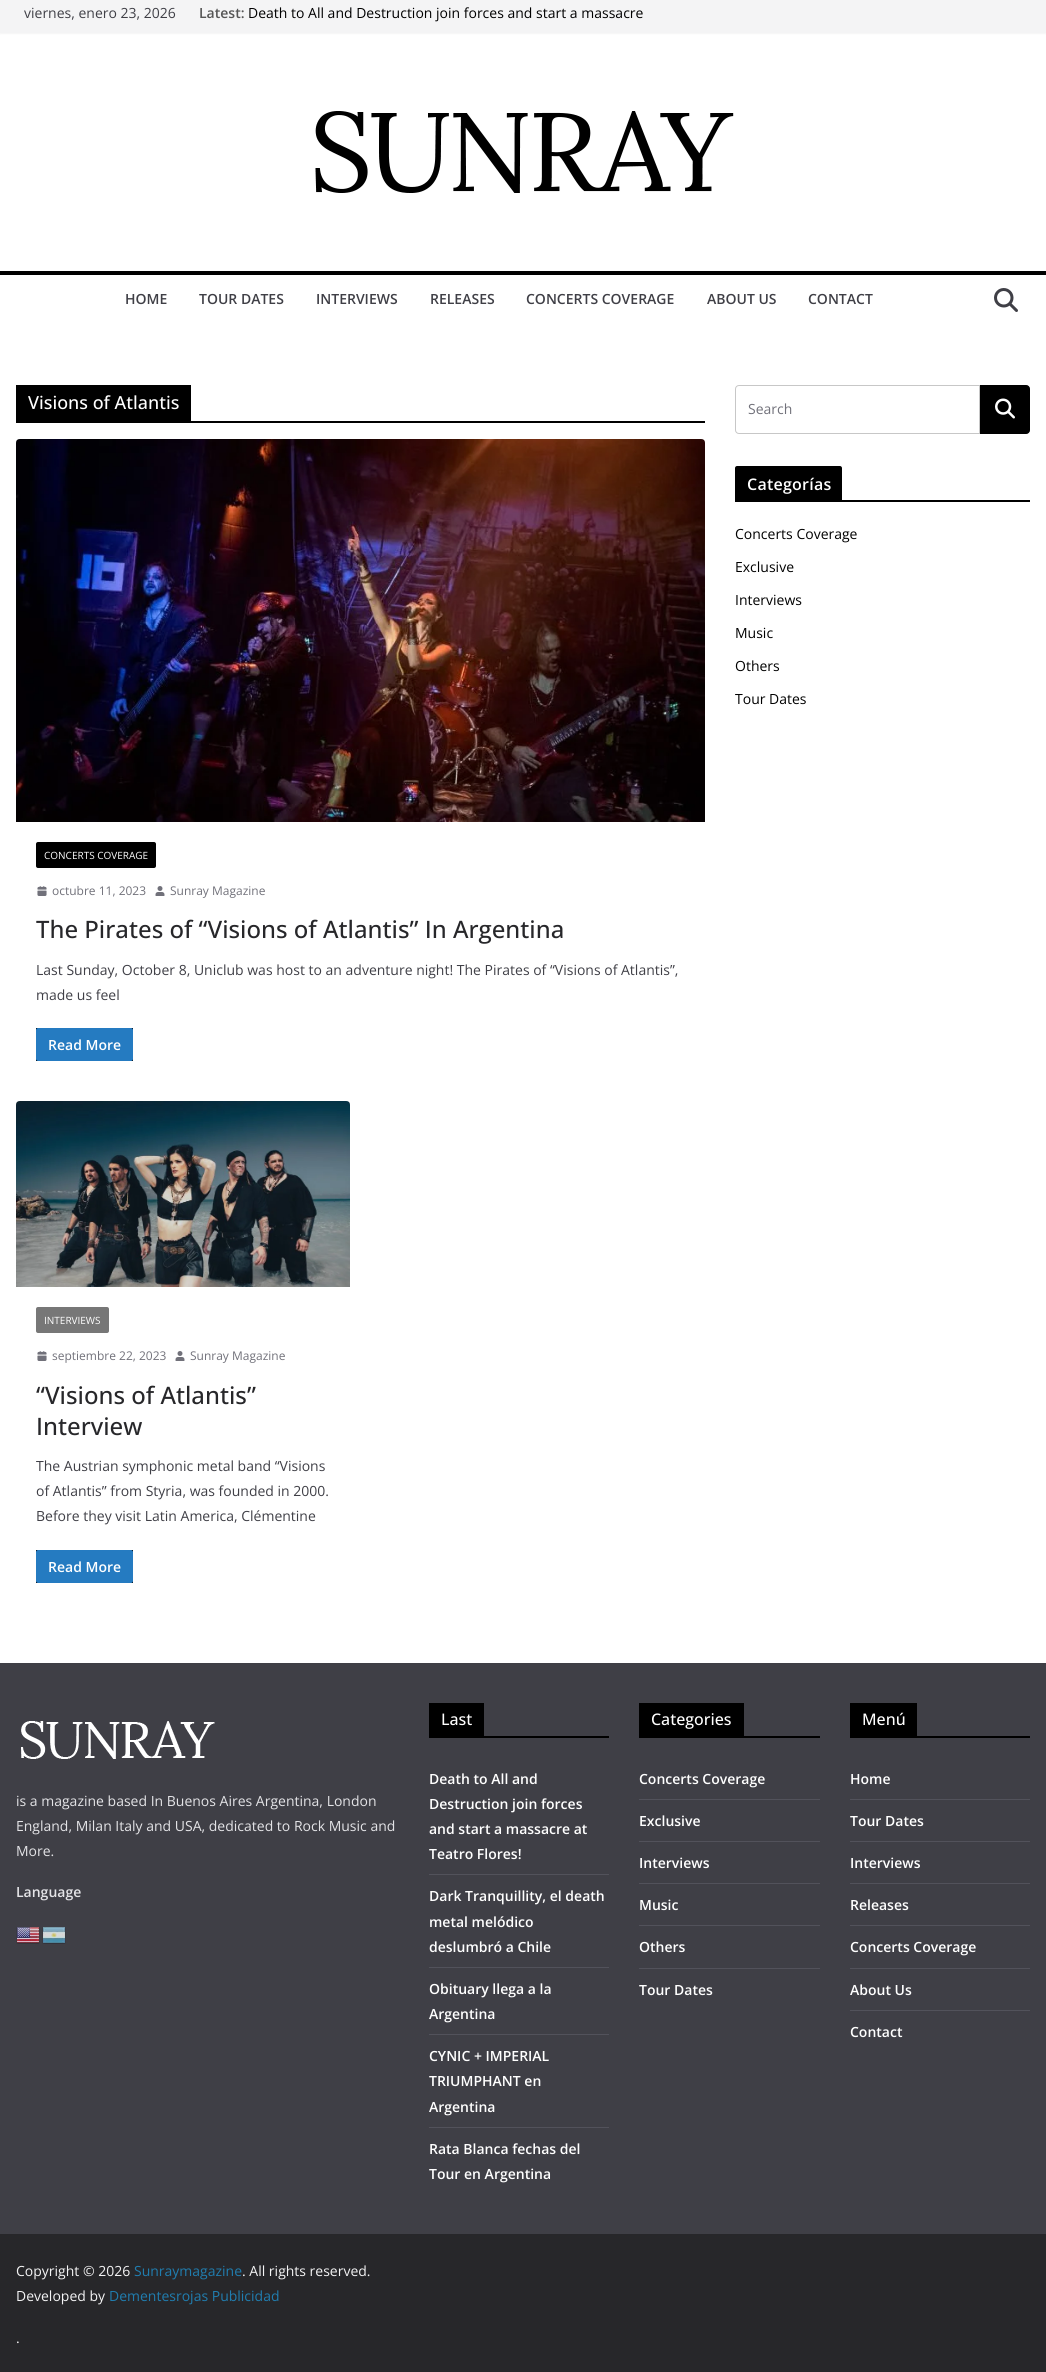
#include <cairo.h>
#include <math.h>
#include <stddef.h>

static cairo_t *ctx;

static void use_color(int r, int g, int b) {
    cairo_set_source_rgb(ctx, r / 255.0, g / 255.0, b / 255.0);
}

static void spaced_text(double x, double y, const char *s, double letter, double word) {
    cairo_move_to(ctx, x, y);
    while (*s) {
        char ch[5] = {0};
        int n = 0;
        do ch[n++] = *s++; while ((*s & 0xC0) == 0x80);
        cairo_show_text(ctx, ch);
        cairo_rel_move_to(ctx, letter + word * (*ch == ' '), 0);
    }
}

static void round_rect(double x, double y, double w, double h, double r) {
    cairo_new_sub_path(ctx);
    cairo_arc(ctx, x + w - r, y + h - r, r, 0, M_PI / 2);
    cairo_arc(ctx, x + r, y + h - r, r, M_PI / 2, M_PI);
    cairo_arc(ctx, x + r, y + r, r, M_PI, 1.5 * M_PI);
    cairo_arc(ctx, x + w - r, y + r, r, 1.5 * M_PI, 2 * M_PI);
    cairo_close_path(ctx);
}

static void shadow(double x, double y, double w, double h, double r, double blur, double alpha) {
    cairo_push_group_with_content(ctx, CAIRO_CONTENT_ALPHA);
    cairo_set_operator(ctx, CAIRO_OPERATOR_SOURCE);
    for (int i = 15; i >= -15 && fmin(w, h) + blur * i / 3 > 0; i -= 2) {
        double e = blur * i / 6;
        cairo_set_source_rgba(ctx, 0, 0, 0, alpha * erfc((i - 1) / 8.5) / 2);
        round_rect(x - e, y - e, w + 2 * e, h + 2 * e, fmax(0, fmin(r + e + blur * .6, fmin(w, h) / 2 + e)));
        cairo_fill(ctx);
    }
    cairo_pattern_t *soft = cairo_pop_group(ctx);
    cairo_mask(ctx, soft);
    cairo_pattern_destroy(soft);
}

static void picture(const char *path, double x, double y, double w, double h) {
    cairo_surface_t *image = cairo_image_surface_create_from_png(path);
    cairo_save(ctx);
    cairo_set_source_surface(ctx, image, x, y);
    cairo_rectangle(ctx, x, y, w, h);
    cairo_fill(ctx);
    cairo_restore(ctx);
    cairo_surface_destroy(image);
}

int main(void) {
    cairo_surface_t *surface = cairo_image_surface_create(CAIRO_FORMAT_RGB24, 1046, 2372);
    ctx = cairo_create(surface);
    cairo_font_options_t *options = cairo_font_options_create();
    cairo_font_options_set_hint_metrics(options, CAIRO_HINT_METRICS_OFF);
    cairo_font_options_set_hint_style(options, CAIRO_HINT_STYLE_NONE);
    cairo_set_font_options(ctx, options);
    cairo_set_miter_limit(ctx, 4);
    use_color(255, 255, 255);
    cairo_paint(ctx);
    use_color(0, 0, 0);
    shadow(0, -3, 1046, 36, 0, 1, 0.1);
    use_color(244, 244, 245);
    cairo_rectangle(ctx, 0, 0, 1046, 33);
    cairo_fill(ctx);
    cairo_select_font_face(ctx, "Open Sans", CAIRO_FONT_SLANT_NORMAL, CAIRO_FONT_WEIGHT_NORMAL);
    cairo_set_font_size(ctx, 14);
    use_color(63, 63, 70);
    cairo_move_to(ctx, 24, 18);
    cairo_show_text(ctx, "viernes, enero 23, 2026");
    cairo_select_font_face(ctx, "Open Sans SemiBold", CAIRO_FONT_SLANT_NORMAL, CAIRO_FONT_WEIGHT_NORMAL);
    use_color(85, 85, 85);
    cairo_move_to(ctx, 199, 18);
    cairo_show_text(ctx, "Latest:");
    cairo_select_font_face(ctx, "Open Sans", CAIRO_FONT_SLANT_NORMAL, CAIRO_FONT_WEIGHT_NORMAL);
    use_color(0, 0, 0);
    cairo_move_to(ctx, 248, 18);
    cairo_show_text(ctx, "Death to All and Destruction join forces and start a massacre");
    picture("img1.png", 315, 111, 419, 82);
    cairo_rectangle(ctx, 0, 271, 1046, 4);
    cairo_fill(ctx);
    cairo_select_font_face(ctx, "Open Sans SemiBold", CAIRO_FONT_SLANT_NORMAL, CAIRO_FONT_WEIGHT_NORMAL);
    use_color(63, 63, 70);
    cairo_move_to(ctx, 125, 304);
    cairo_show_text(ctx, "HOME");
    cairo_move_to(ctx, 199, 304);
    cairo_show_text(ctx, "TOUR DATES");
    cairo_move_to(ctx, 316, 304);
    cairo_show_text(ctx, "INTERVIEWS");
    cairo_move_to(ctx, 430, 304);
    cairo_show_text(ctx, "RELEASES");
    cairo_move_to(ctx, 526, 304);
    cairo_show_text(ctx, "CONCERTS COVERAGE");
    cairo_move_to(ctx, 707, 304);
    cairo_show_text(ctx, "ABOUT US");
    cairo_move_to(ctx, 808, 304);
    cairo_show_text(ctx, "CONTACT");
    picture("img2.png", 994, 288, 24, 24);
    use_color(0, 0, 0);
    cairo_rectangle(ctx, 16, 421, 689, 2);
    cairo_fill(ctx);
    cairo_rectangle(ctx, 16, 385, 175, 36);
    cairo_fill(ctx);
    cairo_select_font_face(ctx, "Open Sans Medium", CAIRO_FONT_SLANT_NORMAL, CAIRO_FONT_WEIGHT_NORMAL);
    cairo_set_font_size(ctx, 18);
    use_color(255, 255, 255);
    cairo_move_to(ctx, 28, 409);
    cairo_show_text(ctx, "Visions of Atlantis");
    picture("img3.png", 16, 439, 689, 383);
    use_color(0, 0, 0);
    round_rect(36, 842, 120, 26, 2);
    cairo_fill(ctx);
    cairo_select_font_face(ctx, "Open Sans", CAIRO_FONT_SLANT_NORMAL, CAIRO_FONT_WEIGHT_NORMAL);
    cairo_set_font_size(ctx, 10);
    use_color(255, 255, 255);
    cairo_move_to(ctx, 44, 859);
    cairo_show_text(ctx, "CONCERTS COVERAGE");
    picture("img4.png", 37, 886, 10, 10);
    cairo_set_font_size(ctx, 12);
    use_color(113, 113, 122);
    cairo_move_to(ctx, 52, 895);
    cairo_show_text(ctx, "octubre 11, 2023");
    picture("img5.png", 155, 886, 10, 10);
    cairo_move_to(ctx, 170, 895);
    cairo_show_text(ctx, "Sunray Magazine");
    cairo_select_font_face(ctx, "Open Sans Medium", CAIRO_FONT_SLANT_NORMAL, CAIRO_FONT_WEIGHT_NORMAL);
    cairo_set_font_size(ctx, 24);
    use_color(39, 39, 42);
    cairo_move_to(ctx, 36, 938);
    cairo_show_text(ctx, "The Pirates of “Visions of Atlantis” In Argentina");
    cairo_select_font_face(ctx, "Open Sans", CAIRO_FONT_SLANT_NORMAL, CAIRO_FONT_WEIGHT_NORMAL);
    cairo_set_font_size(ctx, 14);
    use_color(63, 63, 70);
    cairo_move_to(ctx, 36, 975);
    cairo_show_text(ctx, "Last Sunday, October 8, Uniclub was host to an adventure night! The Pirates of “Visions of Atlantis”,");
    cairo_move_to(ctx, 36, 1000);
    cairo_show_text(ctx, "made us feel");
    use_color(0, 0, 0);
    cairo_rectangle(ctx, 36, 1028, 97, 33);
    cairo_fill(ctx);
    use_color(37, 123, 193);
    round_rect(36, 1028, 97, 33, 2);
    cairo_fill(ctx);
    cairo_select_font_face(ctx, "Open Sans SemiBold", CAIRO_FONT_SLANT_NORMAL, CAIRO_FONT_WEIGHT_NORMAL);
    use_color(255, 255, 255);
    cairo_move_to(ctx, 48, 1050);
    cairo_show_text(ctx, "Read More");
    picture("img6.png", 16, 1101, 334, 186);
    use_color(119, 119, 119);
    round_rect(36, 1307, 73, 26, 2);
    cairo_fill(ctx);
    cairo_select_font_face(ctx, "Open Sans", CAIRO_FONT_SLANT_NORMAL, CAIRO_FONT_WEIGHT_NORMAL);
    cairo_set_font_size(ctx, 10);
    use_color(255, 255, 255);
    cairo_move_to(ctx, 44, 1324);
    cairo_show_text(ctx, "INTERVIEWS");
    picture("img4.png", 37, 1351, 10, 10);
    cairo_set_font_size(ctx, 12);
    use_color(113, 113, 122);
    cairo_move_to(ctx, 52, 1360);
    cairo_show_text(ctx, "septiembre 22, 2023");
    picture("img5.png", 175, 1351, 10, 10);
    cairo_move_to(ctx, 190, 1360);
    cairo_show_text(ctx, "Sunray Magazine");
    cairo_select_font_face(ctx, "Open Sans Medium", CAIRO_FONT_SLANT_NORMAL, CAIRO_FONT_WEIGHT_NORMAL);
    cairo_set_font_size(ctx, 24);
    use_color(39, 39, 42);
    cairo_move_to(ctx, 36, 1404);
    cairo_show_text(ctx, "“Visions of Atlantis”");
    cairo_move_to(ctx, 36, 1435);
    cairo_show_text(ctx, "Interview");
    cairo_select_font_face(ctx, "Open Sans", CAIRO_FONT_SLANT_NORMAL, CAIRO_FONT_WEIGHT_NORMAL);
    cairo_set_font_size(ctx, 14);
    use_color(63, 63, 70);
    cairo_move_to(ctx, 36, 1471);
    cairo_show_text(ctx, "The Austrian symphonic metal band “Visions");
    cairo_move_to(ctx, 36, 1496);
    cairo_show_text(ctx, "of Atlantis” from Styria, was founded in 2000.");
    cairo_move_to(ctx, 36, 1521);
    cairo_show_text(ctx, "Before they visit Latin America, Clémentine");
    use_color(0, 0, 0);
    cairo_rectangle(ctx, 36, 1550, 97, 33);
    cairo_fill(ctx);
    use_color(37, 123, 193);
    round_rect(36, 1550, 97, 33, 2);
    cairo_fill(ctx);
    cairo_select_font_face(ctx, "Open Sans SemiBold", CAIRO_FONT_SLANT_NORMAL, CAIRO_FONT_WEIGHT_NORMAL);
    use_color(255, 255, 255);
    cairo_move_to(ctx, 48, 1572);
    cairo_show_text(ctx, "Read More");
    cairo_new_path(ctx);
    cairo_move_to(ctx, 739, 385.5);
    cairo_line_to(ctx, 979.5, 385.5);
    cairo_line_to(ctx, 979.5, 433.5);
    cairo_line_to(ctx, 739, 433.5);
    cairo_curve_to(ctx, 737, 433.5, 735.5, 432, 735.5, 430);
    cairo_line_to(ctx, 735.5, 389);
    cairo_curve_to(ctx, 735.5, 387, 737, 385.5, 739, 385.5);
    cairo_close_path(ctx);
    use_color(199, 199, 199);
    cairo_set_line_width(ctx, 1);
    cairo_stroke(ctx);
    cairo_select_font_face(ctx, "Open Sans", CAIRO_FONT_SLANT_NORMAL, CAIRO_FONT_WEIGHT_NORMAL);
    use_color(113, 113, 122);
    cairo_move_to(ctx, 748, 414);
    cairo_show_text(ctx, "Search");
    use_color(0, 0, 0);
    cairo_new_path(ctx);
    cairo_move_to(ctx, 980.5, 385.5);
    cairo_line_to(ctx, 1026, 385.5);
    cairo_curve_to(ctx, 1028, 385.5, 1029.5, 387, 1029.5, 389);
    cairo_line_to(ctx, 1029.5, 430);
    cairo_curve_to(ctx, 1029.5, 432, 1028, 433.5, 1026, 433.5);
    cairo_line_to(ctx, 980.5, 433.5);
    cairo_close_path(ctx);
    cairo_fill_preserve(ctx);
    cairo_stroke(ctx);
    picture("img7.png", 995, 398, 20, 21);
    cairo_rectangle(ctx, 735, 500, 295, 2);
    cairo_fill(ctx);
    cairo_new_path(ctx);
    cairo_move_to(ctx, 737, 466);
    cairo_line_to(ctx, 840, 466);
    cairo_curve_to(ctx, 841, 466, 842, 467, 842, 468);
    cairo_line_to(ctx, 842, 500);
    cairo_line_to(ctx, 735, 500);
    cairo_line_to(ctx, 735, 468);
    cairo_curve_to(ctx, 735, 467, 736, 466, 737, 466);
    cairo_close_path(ctx);
    cairo_fill(ctx);
    cairo_select_font_face(ctx, "Open Sans SemiBold", CAIRO_FONT_SLANT_NORMAL, CAIRO_FONT_WEIGHT_NORMAL);
    cairo_set_font_size(ctx, 16);
    use_color(255, 255, 255);
    spaced_text(747, 490, "Categorías", 0.25, 0);
    cairo_select_font_face(ctx, "Open Sans", CAIRO_FONT_SLANT_NORMAL, CAIRO_FONT_WEIGHT_NORMAL);
    cairo_set_font_size(ctx, 14);
    use_color(0, 0, 0);
    cairo_move_to(ctx, 735, 539);
    cairo_show_text(ctx, "Concerts Coverage");
    cairo_move_to(ctx, 735, 572);
    cairo_show_text(ctx, "Exclusive");
    cairo_move_to(ctx, 735, 605);
    cairo_show_text(ctx, "Interviews");
    cairo_move_to(ctx, 735, 638);
    cairo_show_text(ctx, "Music");
    cairo_move_to(ctx, 735, 671);
    cairo_show_text(ctx, "Others");
    cairo_move_to(ctx, 735, 704);
    cairo_show_text(ctx, "Tour Dates");
    use_color(63, 63, 70);
    cairo_rectangle(ctx, 0, 1663, 1046, 571);
    cairo_fill(ctx);
    picture("img8.png", 21, 1721, 194, 38);
    use_color(228, 228, 231);
    cairo_move_to(ctx, 16, 1806);
    cairo_show_text(ctx, "is a magazine based In Buenos Aires Argentina, London");
    cairo_move_to(ctx, 16, 1831);
    cairo_show_text(ctx, "England, Milan Italy and USA, dedicated to Rock Music and");
    cairo_move_to(ctx, 16, 1856);
    cairo_show_text(ctx, "More.");
    cairo_select_font_face(ctx, "Open Sans SemiBold", CAIRO_FONT_SLANT_NORMAL, CAIRO_FONT_WEIGHT_NORMAL);
    cairo_move_to(ctx, 16, 1897);
    cairo_show_text(ctx, "Language");
    picture("img9.png", 16, 1927, 24, 17);
    picture("img10.png", 42, 1927, 24, 17);
    use_color(0, 0, 0);
    cairo_rectangle(ctx, 429, 1736, 180, 2);
    cairo_fill(ctx);
    cairo_rectangle(ctx, 429, 1703, 55, 33);
    cairo_fill(ctx);
    cairo_select_font_face(ctx, "Open Sans Medium", CAIRO_FONT_SLANT_NORMAL, CAIRO_FONT_WEIGHT_NORMAL);
    cairo_set_font_size(ctx, 16);
    use_color(255, 255, 255);
    cairo_move_to(ctx, 441, 1725);
    cairo_show_text(ctx, "Last");
    use_color(82, 82, 91);
    cairo_rectangle(ctx, 429, 1874, 180, 1);
    cairo_fill(ctx);
    cairo_select_font_face(ctx, "Open Sans SemiBold", CAIRO_FONT_SLANT_NORMAL, CAIRO_FONT_WEIGHT_NORMAL);
    cairo_set_font_size(ctx, 14);
    use_color(255, 255, 255);
    cairo_move_to(ctx, 429, 1784);
    cairo_show_text(ctx, "Death to All and");
    cairo_move_to(ctx, 429, 1809);
    cairo_show_text(ctx, "Destruction join forces");
    cairo_move_to(ctx, 429, 1834);
    cairo_show_text(ctx, "and start a massacre at");
    cairo_move_to(ctx, 429, 1859);
    cairo_show_text(ctx, "Teatro Flores!");
    use_color(82, 82, 91);
    cairo_rectangle(ctx, 429, 1967, 180, 1);
    cairo_fill(ctx);
    use_color(255, 255, 255);
    cairo_move_to(ctx, 429, 1901);
    cairo_show_text(ctx, "Dark Tranquillity, el death");
    cairo_move_to(ctx, 429, 1927);
    cairo_show_text(ctx, "metal melódico");
    cairo_move_to(ctx, 429, 1952);
    cairo_show_text(ctx, "deslumbró a Chile");
    use_color(82, 82, 91);
    cairo_rectangle(ctx, 429, 2034, 180, 1);
    cairo_fill(ctx);
    use_color(255, 255, 255);
    cairo_move_to(ctx, 429, 1994);
    cairo_show_text(ctx, "Obituary llega a la");
    cairo_move_to(ctx, 429, 2019);
    cairo_show_text(ctx, "Argentina");
    use_color(82, 82, 91);
    cairo_rectangle(ctx, 429, 2127, 180, 1);
    cairo_fill(ctx);
    use_color(255, 255, 255);
    cairo_move_to(ctx, 429, 2061);
    cairo_show_text(ctx, "CYNIC + IMPERIAL");
    cairo_move_to(ctx, 429, 2086);
    cairo_show_text(ctx, "TRIUMPHANT en");
    cairo_move_to(ctx, 429, 2112);
    cairo_show_text(ctx, "Argentina");
    cairo_move_to(ctx, 429, 2154);
    cairo_show_text(ctx, "Rata Blanca fechas del");
    cairo_move_to(ctx, 429, 2179);
    cairo_show_text(ctx, "Tour en Argentina");
    use_color(0, 0, 0);
    cairo_rectangle(ctx, 639, 1736, 181, 2);
    cairo_fill(ctx);
    cairo_rectangle(ctx, 639, 1703, 105, 33);
    cairo_fill(ctx);
    cairo_select_font_face(ctx, "Open Sans Medium", CAIRO_FONT_SLANT_NORMAL, CAIRO_FONT_WEIGHT_NORMAL);
    cairo_set_font_size(ctx, 16);
    use_color(255, 255, 255);
    cairo_move_to(ctx, 651, 1725);
    cairo_show_text(ctx, "Categories");
    use_color(82, 82, 91);
    cairo_rectangle(ctx, 639, 1799, 181, 1);
    cairo_fill(ctx);
    cairo_select_font_face(ctx, "Open Sans SemiBold", CAIRO_FONT_SLANT_NORMAL, CAIRO_FONT_WEIGHT_NORMAL);
    cairo_set_font_size(ctx, 14);
    use_color(255, 255, 255);
    cairo_move_to(ctx, 639, 1784);
    cairo_show_text(ctx, "Concerts Coverage");
    use_color(82, 82, 91);
    cairo_rectangle(ctx, 639, 1841, 181, 1);
    cairo_fill(ctx);
    use_color(255, 255, 255);
    cairo_move_to(ctx, 639, 1826);
    cairo_show_text(ctx, "Exclusive");
    use_color(82, 82, 91);
    cairo_rectangle(ctx, 639, 1883, 181, 1);
    cairo_fill(ctx);
    use_color(255, 255, 255);
    cairo_move_to(ctx, 639, 1868);
    cairo_show_text(ctx, "Interviews");
    use_color(82, 82, 91);
    cairo_rectangle(ctx, 639, 1925, 181, 1);
    cairo_fill(ctx);
    use_color(255, 255, 255);
    cairo_move_to(ctx, 639, 1910);
    cairo_show_text(ctx, "Music");
    use_color(82, 82, 91);
    cairo_rectangle(ctx, 639, 1968, 181, 1);
    cairo_fill(ctx);
    use_color(255, 255, 255);
    cairo_move_to(ctx, 639, 1952);
    cairo_show_text(ctx, "Others");
    cairo_move_to(ctx, 639, 1995);
    cairo_show_text(ctx, "Tour Dates");
    use_color(0, 0, 0);
    cairo_rectangle(ctx, 850, 1736, 180, 2);
    cairo_fill(ctx);
    cairo_rectangle(ctx, 850, 1703, 67, 33);
    cairo_fill(ctx);
    cairo_select_font_face(ctx, "Open Sans Medium", CAIRO_FONT_SLANT_NORMAL, CAIRO_FONT_WEIGHT_NORMAL);
    cairo_set_font_size(ctx, 16);
    use_color(255, 255, 255);
    cairo_move_to(ctx, 862, 1725);
    cairo_show_text(ctx, "Menú");
    use_color(82, 82, 91);
    cairo_rectangle(ctx, 850, 1799, 180, 1);
    cairo_fill(ctx);
    cairo_select_font_face(ctx, "Open Sans SemiBold", CAIRO_FONT_SLANT_NORMAL, CAIRO_FONT_WEIGHT_NORMAL);
    cairo_set_font_size(ctx, 14);
    use_color(255, 255, 255);
    cairo_move_to(ctx, 850, 1784);
    cairo_show_text(ctx, "Home");
    use_color(82, 82, 91);
    cairo_rectangle(ctx, 850, 1841, 180, 1);
    cairo_fill(ctx);
    use_color(255, 255, 255);
    cairo_move_to(ctx, 850, 1826);
    cairo_show_text(ctx, "Tour Dates");
    use_color(82, 82, 91);
    cairo_rectangle(ctx, 850, 1883, 180, 1);
    cairo_fill(ctx);
    use_color(255, 255, 255);
    cairo_move_to(ctx, 850, 1868);
    cairo_show_text(ctx, "Interviews");
    use_color(82, 82, 91);
    cairo_rectangle(ctx, 850, 1925, 180, 1);
    cairo_fill(ctx);
    use_color(255, 255, 255);
    cairo_move_to(ctx, 850, 1910);
    cairo_show_text(ctx, "Releases");
    use_color(82, 82, 91);
    cairo_rectangle(ctx, 850, 1968, 180, 1);
    cairo_fill(ctx);
    use_color(255, 255, 255);
    cairo_move_to(ctx, 850, 1952);
    cairo_show_text(ctx, "Concerts Coverage");
    use_color(82, 82, 91);
    cairo_rectangle(ctx, 850, 2010, 180, 1);
    cairo_fill(ctx);
    use_color(255, 255, 255);
    cairo_move_to(ctx, 850, 1995);
    cairo_show_text(ctx, "About Us");
    cairo_move_to(ctx, 850, 2037);
    cairo_show_text(ctx, "Contact");
    use_color(39, 39, 42);
    cairo_rectangle(ctx, 0, 2234, 1046, 138);
    cairo_fill(ctx);
    cairo_select_font_face(ctx, "Open Sans", CAIRO_FONT_SLANT_NORMAL, CAIRO_FONT_WEIGHT_NORMAL);
    use_color(244, 244, 245);
    cairo_move_to(ctx, 16, 2276);
    cairo_show_text(ctx, "Copyright © 2026");
    use_color(32, 125, 175);
    cairo_move_to(ctx, 134, 2276);
    cairo_show_text(ctx, "Sunraymagazine");
    use_color(244, 244, 245);
    cairo_move_to(ctx, 242, 2276);
    cairo_show_text(ctx, ". All rights reserved.");
    cairo_move_to(ctx, 16, 2301);
    cairo_show_text(ctx, "Developed by");
    use_color(32, 125, 175);
    cairo_move_to(ctx, 109, 2301);
    cairo_show_text(ctx, "Dementesrojas Publicidad");
    use_color(244, 244, 245);
    cairo_move_to(ctx, 16, 2343);
    cairo_show_text(ctx, ".");
    cairo_surface_write_to_png(surface, "result.png");
    cairo_font_options_destroy(options);
    cairo_destroy(ctx);
    cairo_surface_destroy(surface);
    return 0;
}
